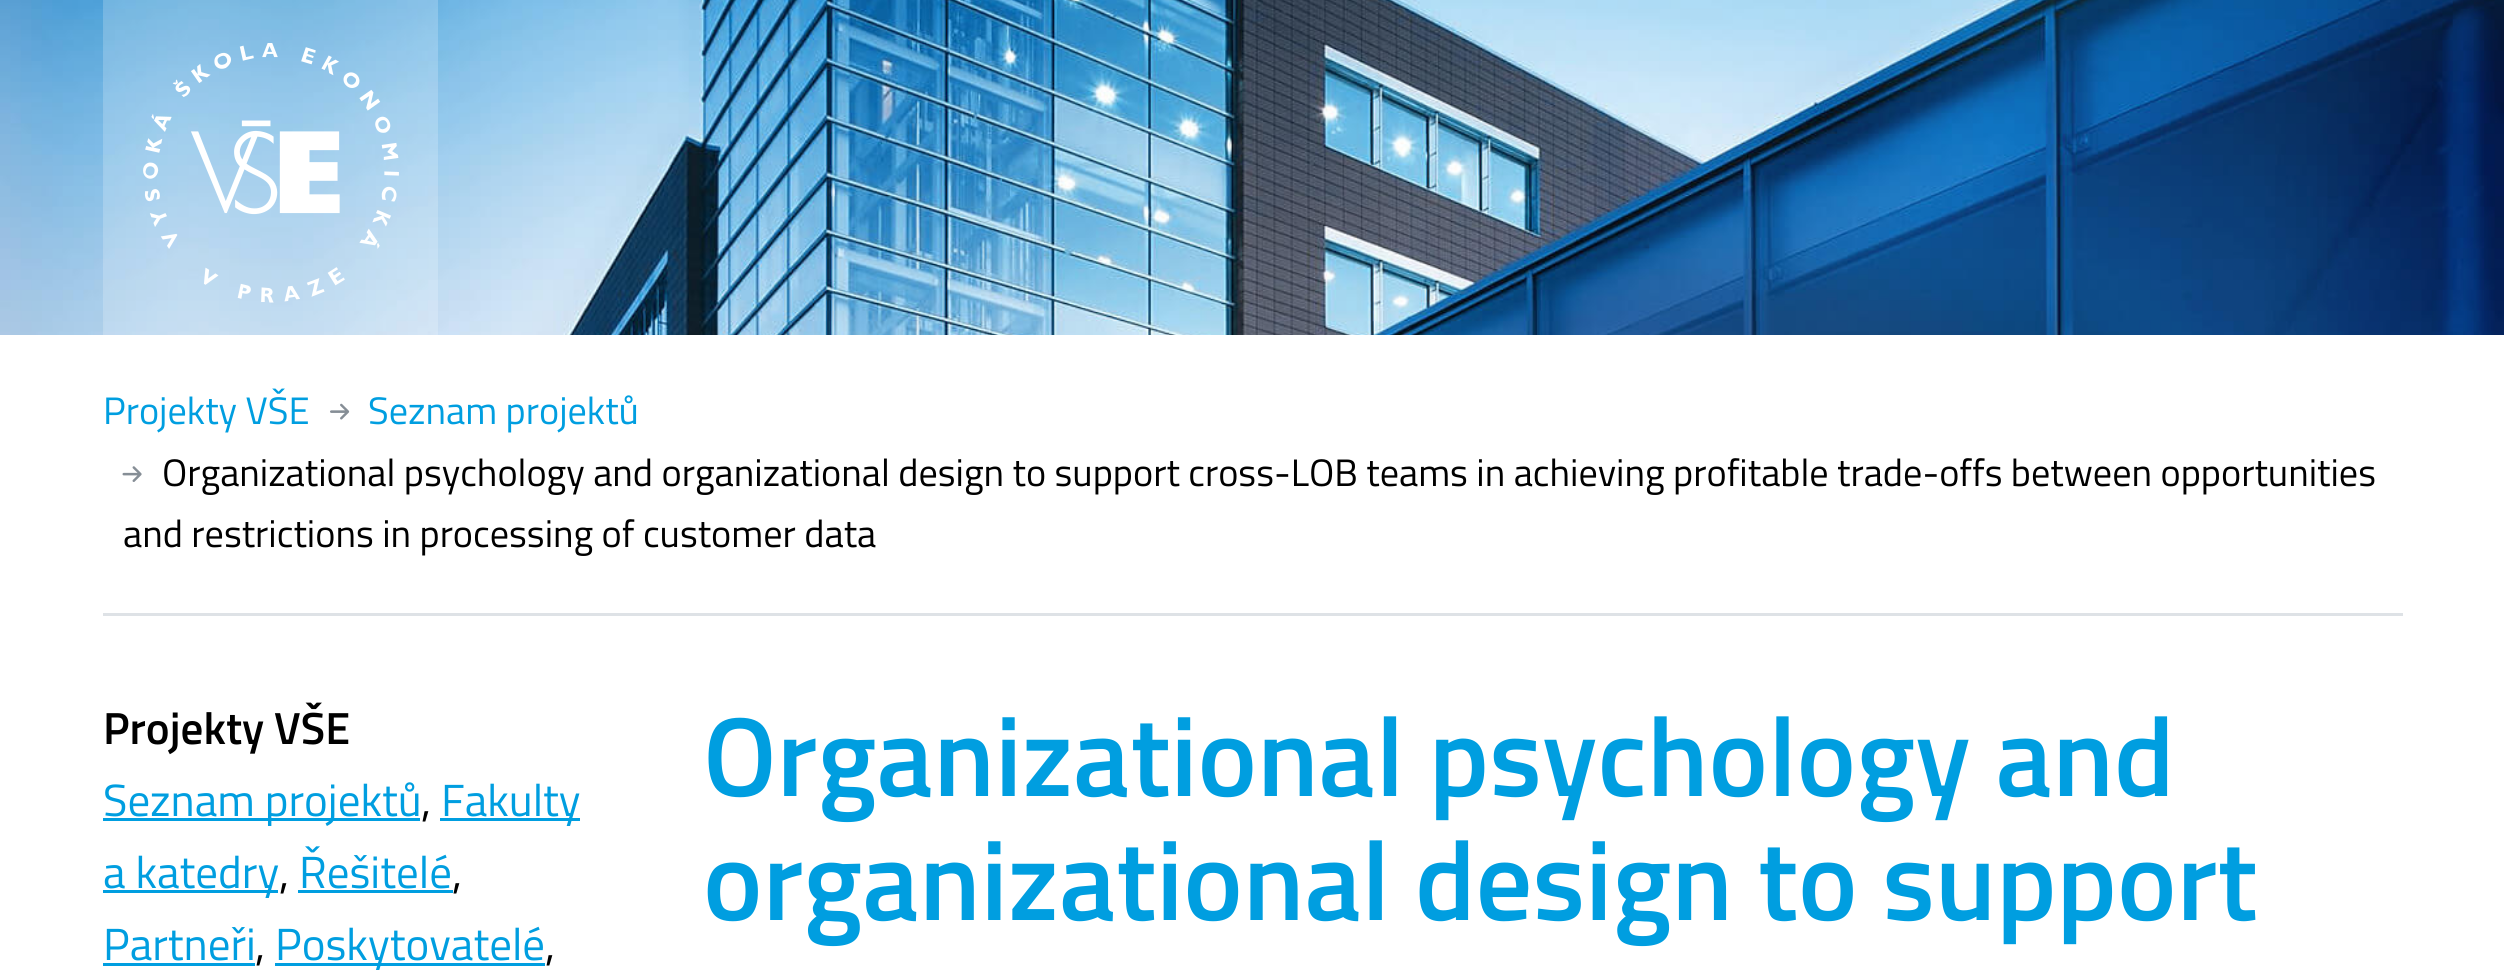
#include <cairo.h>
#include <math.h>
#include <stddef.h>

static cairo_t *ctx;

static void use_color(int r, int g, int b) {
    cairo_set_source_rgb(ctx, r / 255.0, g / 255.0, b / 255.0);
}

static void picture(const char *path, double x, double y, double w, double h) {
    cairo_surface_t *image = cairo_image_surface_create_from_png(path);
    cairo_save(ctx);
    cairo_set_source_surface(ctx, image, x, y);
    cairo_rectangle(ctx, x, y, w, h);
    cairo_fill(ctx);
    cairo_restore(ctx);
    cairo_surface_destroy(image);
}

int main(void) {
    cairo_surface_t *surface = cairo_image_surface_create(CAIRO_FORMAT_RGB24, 2504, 979);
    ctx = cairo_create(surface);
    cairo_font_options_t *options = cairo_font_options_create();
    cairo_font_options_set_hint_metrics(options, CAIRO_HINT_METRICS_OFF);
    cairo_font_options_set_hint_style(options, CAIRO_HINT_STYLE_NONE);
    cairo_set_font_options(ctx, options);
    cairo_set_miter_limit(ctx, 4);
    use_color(255, 255, 255);
    cairo_paint(ctx);
    picture("img1.png", 0, 0, 2504, 335);
    cairo_set_source_rgba(ctx, 1, 1, 1, 0.2);
    cairo_rectangle(ctx, 103, 0, 335, 335);
    cairo_fill(ctx);
    picture("img2.png", 143, 43, 256, 260);
    use_color(222, 226, 230);
    cairo_rectangle(ctx, 103, 613, 2300, 3);
    cairo_fill(ctx);
    cairo_select_font_face(ctx, "Titillium Web", CAIRO_FONT_SLANT_NORMAL, CAIRO_FONT_WEIGHT_NORMAL);
    cairo_set_font_size(ctx, 38.25);
    use_color(0, 158, 224);
    cairo_move_to(ctx, 103, 424);
    cairo_show_text(ctx, "Projekty VŠE");
    picture("img3.png", 330, 403, 20, 17);
    cairo_move_to(ctx, 368, 424);
    cairo_show_text(ctx, "Seznam projektů");
    picture("img4.png", 122, 466, 20, 16);
    use_color(0, 0, 0);
    cairo_move_to(ctx, 162, 486);
    cairo_show_text(ctx, "Organizational psychology and organizational design to support cross-LOB teams in achieving profitable trade-offs between opportunities");
    cairo_move_to(ctx, 123, 547);
    cairo_show_text(ctx, "and restrictions in processing of customer data");
    cairo_select_font_face(ctx, "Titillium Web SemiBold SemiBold", CAIRO_FONT_SLANT_NORMAL, CAIRO_FONT_WEIGHT_NORMAL);
    cairo_set_font_size(ctx, 45);
    cairo_move_to(ctx, 103, 744);
    cairo_show_text(ctx, "Projekty VŠE");
    use_color(0, 158, 224);
    cairo_rectangle(ctx, 103, 818, 317, 3);
    cairo_fill(ctx);
    cairo_select_font_face(ctx, "Titillium Web", CAIRO_FONT_SLANT_NORMAL, CAIRO_FONT_WEIGHT_NORMAL);
    cairo_move_to(ctx, 103, 816);
    cairo_show_text(ctx, "Seznam projektů");
    use_color(0, 0, 0);
    cairo_move_to(ctx, 421, 816);
    cairo_show_text(ctx, ",");
    use_color(0, 158, 224);
    cairo_rectangle(ctx, 440, 818, 140, 3);
    cairo_fill(ctx);
    cairo_move_to(ctx, 441, 816);
    cairo_show_text(ctx, "Fakulty");
    cairo_rectangle(ctx, 103, 890, 175, 3);
    cairo_fill(ctx);
    cairo_move_to(ctx, 103, 888);
    cairo_show_text(ctx, "a katedry");
    use_color(0, 0, 0);
    cairo_move_to(ctx, 279, 888);
    cairo_show_text(ctx, ",");
    use_color(0, 158, 224);
    cairo_move_to(ctx, 299, 888);
    cairo_show_text(ctx, "Řešitelé");
    cairo_rectangle(ctx, 298, 890, 155, 3);
    cairo_fill(ctx);
    use_color(0, 0, 0);
    cairo_move_to(ctx, 452, 888);
    cairo_show_text(ctx, ",");
    use_color(0, 158, 224);
    cairo_move_to(ctx, 103, 960);
    cairo_show_text(ctx, "Partneři");
    cairo_rectangle(ctx, 103, 963, 152, 3);
    cairo_fill(ctx);
    use_color(0, 0, 0);
    cairo_move_to(ctx, 255, 960);
    cairo_show_text(ctx, ",");
    use_color(0, 158, 224);
    cairo_rectangle(ctx, 275, 963, 270, 3);
    cairo_fill(ctx);
    cairo_move_to(ctx, 275, 960);
    cairo_show_text(ctx, "Poskytovatelé");
    use_color(0, 0, 0);
    cairo_move_to(ctx, 545, 960);
    cairo_show_text(ctx, ",");
    cairo_select_font_face(ctx, "Titillium Web SemiBold SemiBold", CAIRO_FONT_SLANT_NORMAL, CAIRO_FONT_WEIGHT_NORMAL);
    cairo_set_font_size(ctx, 112.5);
    use_color(0, 158, 224);
    cairo_move_to(ctx, 703, 796);
    cairo_show_text(ctx, "Organizational psychology and");
    cairo_move_to(ctx, 703, 920);
    cairo_show_text(ctx, "organizational design to support");
    cairo_surface_write_to_png(surface, "result.png");
    cairo_font_options_destroy(options);
    cairo_destroy(ctx);
    cairo_surface_destroy(surface);
    return 0;
}
